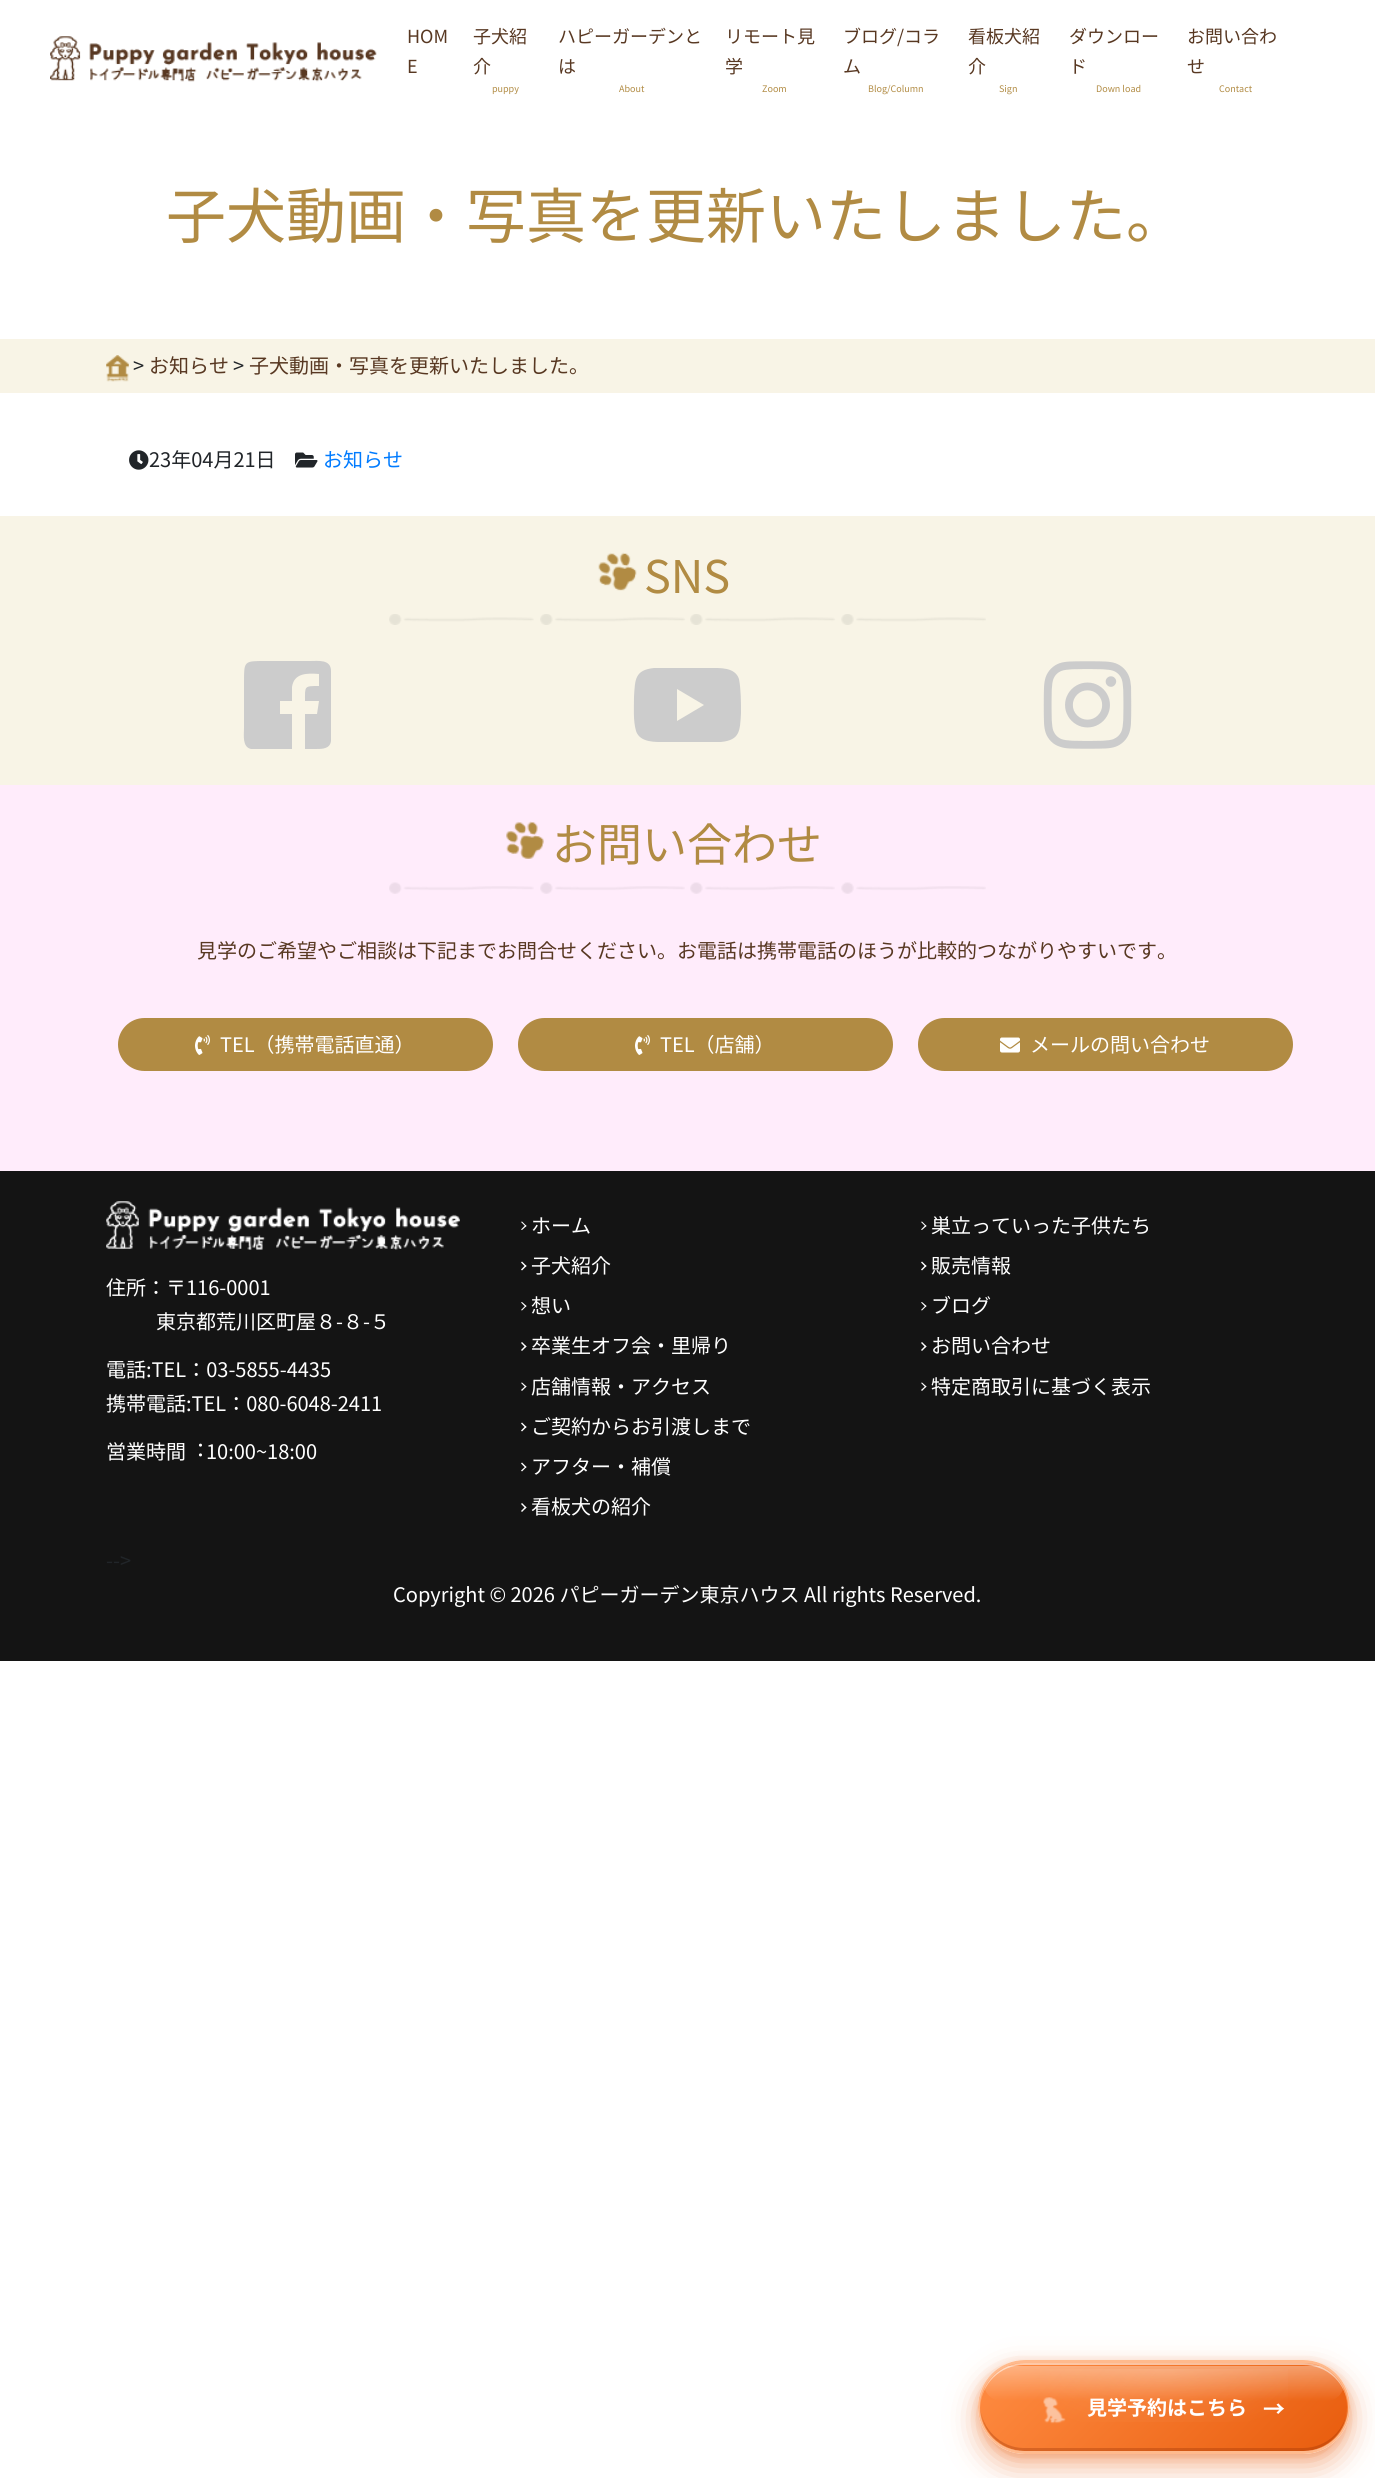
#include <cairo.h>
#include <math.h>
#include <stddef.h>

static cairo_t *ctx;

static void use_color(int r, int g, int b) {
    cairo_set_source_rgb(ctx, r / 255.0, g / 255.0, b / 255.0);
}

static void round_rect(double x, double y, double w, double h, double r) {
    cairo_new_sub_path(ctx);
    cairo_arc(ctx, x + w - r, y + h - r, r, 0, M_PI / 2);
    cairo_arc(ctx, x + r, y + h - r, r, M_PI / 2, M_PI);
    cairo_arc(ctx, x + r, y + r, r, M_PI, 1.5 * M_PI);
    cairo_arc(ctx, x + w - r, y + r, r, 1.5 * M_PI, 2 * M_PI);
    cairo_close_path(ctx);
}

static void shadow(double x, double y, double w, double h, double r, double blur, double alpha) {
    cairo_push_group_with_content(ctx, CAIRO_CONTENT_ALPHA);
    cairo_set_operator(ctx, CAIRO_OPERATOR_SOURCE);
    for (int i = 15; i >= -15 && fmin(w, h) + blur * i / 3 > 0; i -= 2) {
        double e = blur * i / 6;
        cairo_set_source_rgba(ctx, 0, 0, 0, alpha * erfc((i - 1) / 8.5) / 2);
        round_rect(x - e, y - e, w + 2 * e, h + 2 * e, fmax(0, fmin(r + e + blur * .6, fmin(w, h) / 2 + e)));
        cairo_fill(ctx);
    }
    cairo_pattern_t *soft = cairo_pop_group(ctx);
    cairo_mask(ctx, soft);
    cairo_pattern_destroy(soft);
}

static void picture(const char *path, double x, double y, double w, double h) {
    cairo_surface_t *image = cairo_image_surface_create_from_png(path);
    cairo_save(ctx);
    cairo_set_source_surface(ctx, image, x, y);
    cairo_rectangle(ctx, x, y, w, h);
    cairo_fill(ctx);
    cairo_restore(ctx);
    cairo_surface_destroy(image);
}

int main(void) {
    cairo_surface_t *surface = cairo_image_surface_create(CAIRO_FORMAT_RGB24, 1375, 2478);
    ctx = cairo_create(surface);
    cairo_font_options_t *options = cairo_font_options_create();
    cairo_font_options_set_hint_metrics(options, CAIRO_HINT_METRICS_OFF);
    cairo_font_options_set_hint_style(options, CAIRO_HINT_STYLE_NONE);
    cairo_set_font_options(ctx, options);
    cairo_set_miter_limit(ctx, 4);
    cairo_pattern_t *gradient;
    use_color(255, 255, 255);
    cairo_paint(ctx);
    picture("img1.png", 50, 36, 327, 46);
    cairo_select_font_face(ctx, "Noto Sans JP", CAIRO_FONT_SLANT_NORMAL, CAIRO_FONT_WEIGHT_NORMAL);
    cairo_set_font_size(ctx, 18);
    use_color(88, 56, 34);
    cairo_move_to(ctx, 407, 43);
    cairo_show_text(ctx, "HOM");
    cairo_move_to(ctx, 407, 73);
    cairo_show_text(ctx, "E");
    cairo_move_to(ctx, 473, 43);
    cairo_show_text(ctx, "子犬紹");
    cairo_move_to(ctx, 473, 73);
    cairo_show_text(ctx, "介");
    cairo_set_font_size(ctx, 9);
    use_color(177, 139, 67);
    cairo_move_to(ctx, 492, 92);
    cairo_show_text(ctx, "puppy");
    cairo_set_font_size(ctx, 18);
    use_color(88, 56, 34);
    cairo_move_to(ctx, 558, 43);
    cairo_show_text(ctx, "ハピーガーデンと");
    cairo_move_to(ctx, 558, 73);
    cairo_show_text(ctx, "は");
    cairo_set_font_size(ctx, 9);
    use_color(177, 139, 67);
    cairo_move_to(ctx, 619, 92);
    cairo_show_text(ctx, "About");
    cairo_set_font_size(ctx, 18);
    use_color(88, 56, 34);
    cairo_move_to(ctx, 725, 43);
    cairo_show_text(ctx, "リモート見");
    cairo_move_to(ctx, 725, 73);
    cairo_show_text(ctx, "学");
    cairo_set_font_size(ctx, 9);
    use_color(177, 139, 67);
    cairo_move_to(ctx, 762, 92);
    cairo_show_text(ctx, "Zoom");
    cairo_set_font_size(ctx, 18);
    use_color(88, 56, 34);
    cairo_move_to(ctx, 843, 43);
    cairo_show_text(ctx, "ブログ/コラ");
    cairo_move_to(ctx, 843, 73);
    cairo_show_text(ctx, "ム");
    cairo_set_font_size(ctx, 9);
    use_color(177, 139, 67);
    cairo_move_to(ctx, 868, 92);
    cairo_show_text(ctx, "Blog/Column");
    cairo_set_font_size(ctx, 18);
    use_color(88, 56, 34);
    cairo_move_to(ctx, 968, 43);
    cairo_show_text(ctx, "看板犬紹");
    cairo_move_to(ctx, 968, 73);
    cairo_show_text(ctx, "介");
    cairo_set_font_size(ctx, 9);
    use_color(177, 139, 67);
    cairo_move_to(ctx, 999, 92);
    cairo_show_text(ctx, "Sign");
    cairo_set_font_size(ctx, 18);
    use_color(88, 56, 34);
    cairo_move_to(ctx, 1069, 43);
    cairo_show_text(ctx, "ダウンロー");
    cairo_move_to(ctx, 1069, 73);
    cairo_show_text(ctx, "ド");
    cairo_set_font_size(ctx, 9);
    use_color(177, 139, 67);
    cairo_move_to(ctx, 1096, 92);
    cairo_show_text(ctx, "Down load");
    cairo_set_font_size(ctx, 18);
    use_color(88, 56, 34);
    cairo_move_to(ctx, 1187, 43);
    cairo_show_text(ctx, "お問い合わ");
    cairo_move_to(ctx, 1187, 73);
    cairo_show_text(ctx, "せ");
    cairo_set_font_size(ctx, 9);
    use_color(177, 139, 67);
    cairo_move_to(ctx, 1219, 92);
    cairo_show_text(ctx, "Contact");
    cairo_set_font_size(ctx, 60);
    cairo_move_to(ctx, 166, 238);
    cairo_show_text(ctx, "子犬動画・写真を更新いたしました。");
    use_color(248, 244, 230);
    cairo_rectangle(ctx, 0, 339, 1375, 54);
    cairo_fill(ctx);
    picture("img2.png", 106, 355, 23, 27);
    cairo_set_font_size(ctx, 20);
    use_color(33, 37, 41);
    cairo_move_to(ctx, 133, 373);
    cairo_show_text(ctx, ">");
    use_color(88, 56, 34);
    cairo_move_to(ctx, 149, 373);
    cairo_show_text(ctx, "お知らせ");
    use_color(33, 37, 41);
    cairo_move_to(ctx, 233, 373);
    cairo_show_text(ctx, ">");
    use_color(88, 56, 34);
    cairo_move_to(ctx, 249, 373);
    cairo_show_text(ctx, "子犬動画・写真を更新いたしました。");
    picture("img3.png", 129, 450, 20, 20);
    use_color(33, 37, 41);
    cairo_move_to(ctx, 149, 467);
    cairo_show_text(ctx, "23年04月21日");
    picture("img4.png", 295, 452, 23, 16);
    use_color(0, 123, 255);
    cairo_move_to(ctx, 323, 467);
    cairo_show_text(ctx, "お知らせ");
    use_color(248, 244, 230);
    cairo_rectangle(ctx, 0, 516, 1375, 269);
    cairo_fill(ctx);
    picture("img5.png", 389, 614, 597, 11);
    picture("img6.png", 598, 552, 39, 39);
    cairo_set_font_size(ctx, 45);
    use_color(177, 139, 67);
    cairo_move_to(ctx, 644, 593);
    cairo_show_text(ctx, "SNS");
    use_color(204, 204, 204);
    cairo_new_path(ctx);
    cairo_move_to(ctx, 331, 671);
    cairo_line_to(ctx, 331, 741);
    cairo_curve_to(ctx, 330, 749, 322, 749, 316, 749);
    cairo_line_to(ctx, 305, 749);
    cairo_line_to(ctx, 305, 714);
    cairo_line_to(ctx, 317, 714);
    cairo_line_to(ctx, 319, 701);
    cairo_line_to(ctx, 305, 701);
    cairo_curve_to(ctx, 305, 686, 304, 686, 319, 686);
    cairo_line_to(ctx, 319, 674);
    cairo_curve_to(ctx, 307, 673, 294, 673, 292, 687);
    cairo_line_to(ctx, 292, 701);
    cairo_line_to(ctx, 280, 701);
    cairo_line_to(ctx, 280, 714);
    cairo_line_to(ctx, 292, 714);
    cairo_line_to(ctx, 292, 749);
    cairo_line_to(ctx, 251, 749);
    cairo_curve_to(ctx, 242, 747, 244, 735, 244, 728);
    cairo_line_to(ctx, 244, 682);
    cairo_curve_to(ctx, 244, 661, 244, 661, 265, 661);
    cairo_line_to(ctx, 310, 661);
    cairo_curve_to(ctx, 318, 661, 331, 659, 331, 671);
    cairo_close_path(ctx);
    cairo_fill(ctx);
    cairo_new_path(ctx);
    cairo_move_to(ctx, 739, 679);
    cairo_curve_to(ctx, 735, 667, 720, 668, 710, 668);
    cairo_line_to(ctx, 679, 668);
    cairo_line_to(ctx, 654, 668);
    cairo_curve_to(ctx, 635, 670, 635, 679, 634, 697);
    cairo_curve_to(ctx, 634, 708, 633, 720, 636, 731);
    cairo_curve_to(ctx, 640, 743, 656, 742, 665, 742);
    cairo_line_to(ctx, 696, 742);
    cairo_line_to(ctx, 721, 742);
    cairo_curve_to(ctx, 740, 740, 740, 731, 741, 713);
    cairo_curve_to(ctx, 741, 702, 741, 690, 739, 679);
    cairo_close_path(ctx);
    cairo_move_to(ctx, 677, 721);
    cairo_line_to(ctx, 677, 689);
    cairo_line_to(ctx, 704, 705);
    cairo_close_path(ctx);
    cairo_fill(ctx);
    picture("img7.png", 1043, 661, 89, 88);
    use_color(255, 236, 251);
    cairo_rectangle(ctx, 0, 785, 1375, 386);
    cairo_fill(ctx);
    picture("img8.png", 389, 882, 597, 12);
    picture("img9.png", 506, 821, 38, 38);
    use_color(177, 139, 67);
    cairo_move_to(ctx, 552, 861);
    cairo_show_text(ctx, "お問い合わせ");
    cairo_set_font_size(ctx, 20);
    use_color(88, 56, 34);
    cairo_move_to(ctx, 197, 958);
    cairo_show_text(ctx, "⾒学のご希望やご相談は下記までお問合せください。お電話は携帯電話のほうが比較的つながりやすいです。");
    use_color(177, 139, 67);
    round_rect(118, 1018, 375, 53, 26.5);
    cairo_fill(ctx);
    picture("img10.png", 195, 1035, 15, 20);
    use_color(255, 255, 255);
    cairo_move_to(ctx, 220, 1052);
    cairo_show_text(ctx, "TEL（携帯電話直通）");
    use_color(177, 139, 67);
    round_rect(518, 1018, 375, 53, 26.5);
    cairo_fill(ctx);
    picture("img10.png", 635, 1035, 15, 20);
    use_color(255, 255, 255);
    cairo_move_to(ctx, 660, 1052);
    cairo_show_text(ctx, "TEL（店舗）");
    use_color(177, 139, 67);
    round_rect(918, 1018, 375, 53, 26.5);
    cairo_fill(ctx);
    picture("img11.png", 1000, 1037, 20, 16);
    use_color(255, 255, 255);
    cairo_move_to(ctx, 1030, 1052);
    cairo_show_text(ctx, "メールの問い合わせ");
    use_color(20, 20, 20);
    cairo_rectangle(ctx, 0, 1171, 1375, 490);
    cairo_fill(ctx);
    picture("img12.png", 106, 1201, 354, 49);
    use_color(255, 255, 255);
    cairo_move_to(ctx, 106, 1295);
    cairo_show_text(ctx, "住所：〒116-0001");
    cairo_move_to(ctx, 156, 1329);
    cairo_show_text(ctx, "東京都荒川区町屋８-８-５");
    cairo_move_to(ctx, 106, 1377);
    cairo_show_text(ctx, "電話:TEL：03-5855-4435");
    cairo_move_to(ctx, 106, 1411);
    cairo_show_text(ctx, "携帯電話:TEL：080-6048-2411");
    cairo_move_to(ctx, 106, 1459);
    cairo_show_text(ctx, "営業時間︓10:00~18:00");
    cairo_new_path(ctx);
    cairo_move_to(ctx, 521, 1222);
    cairo_line_to(ctx, 522, 1221.5);
    cairo_line_to(ctx, 526.5, 1226);
    cairo_line_to(ctx, 525.5, 1226.5);
    cairo_close_path(ctx);
    cairo_fill(ctx);
    cairo_new_path(ctx);
    cairo_move_to(ctx, 521, 1229.5);
    cairo_line_to(ctx, 525.5, 1225);
    cairo_line_to(ctx, 526.5, 1226);
    cairo_line_to(ctx, 522, 1230);
    cairo_close_path(ctx);
    cairo_fill(ctx);
    cairo_move_to(ctx, 531, 1233);
    cairo_show_text(ctx, "ホーム");
    cairo_new_path(ctx);
    cairo_move_to(ctx, 521, 1262.5);
    cairo_line_to(ctx, 522, 1261.5);
    cairo_line_to(ctx, 526.5, 1266);
    cairo_line_to(ctx, 525.5, 1267);
    cairo_close_path(ctx);
    cairo_fill(ctx);
    cairo_new_path(ctx);
    cairo_move_to(ctx, 521, 1269.5);
    cairo_line_to(ctx, 525.5, 1265);
    cairo_line_to(ctx, 526.5, 1266);
    cairo_line_to(ctx, 522, 1270.5);
    cairo_close_path(ctx);
    cairo_fill(ctx);
    cairo_move_to(ctx, 531, 1273);
    cairo_show_text(ctx, "子犬紹介");
    cairo_new_path(ctx);
    cairo_move_to(ctx, 521, 1302.5);
    cairo_line_to(ctx, 522, 1302);
    cairo_line_to(ctx, 526.5, 1306);
    cairo_line_to(ctx, 525.5, 1307);
    cairo_close_path(ctx);
    cairo_fill(ctx);
    cairo_new_path(ctx);
    cairo_move_to(ctx, 521, 1310);
    cairo_line_to(ctx, 525.5, 1305.5);
    cairo_line_to(ctx, 526.5, 1306);
    cairo_line_to(ctx, 522, 1310.5);
    cairo_close_path(ctx);
    cairo_fill(ctx);
    cairo_move_to(ctx, 531, 1313);
    cairo_show_text(ctx, "想い");
    cairo_new_path(ctx);
    cairo_move_to(ctx, 521, 1343);
    cairo_line_to(ctx, 522, 1342);
    cairo_line_to(ctx, 526.5, 1346.5);
    cairo_line_to(ctx, 525.5, 1347.5);
    cairo_close_path(ctx);
    cairo_fill(ctx);
    cairo_new_path(ctx);
    cairo_move_to(ctx, 521, 1350);
    cairo_line_to(ctx, 525.5, 1345.5);
    cairo_line_to(ctx, 526.5, 1346.5);
    cairo_line_to(ctx, 522, 1351);
    cairo_close_path(ctx);
    cairo_fill(ctx);
    cairo_move_to(ctx, 531, 1353);
    cairo_show_text(ctx, "卒業生オフ会・里帰り");
    cairo_new_path(ctx);
    cairo_move_to(ctx, 521, 1383);
    cairo_line_to(ctx, 522, 1382.5);
    cairo_line_to(ctx, 526.5, 1386.5);
    cairo_line_to(ctx, 525.5, 1387.5);
    cairo_close_path(ctx);
    cairo_fill(ctx);
    cairo_new_path(ctx);
    cairo_move_to(ctx, 521, 1390);
    cairo_line_to(ctx, 525.5, 1386);
    cairo_line_to(ctx, 526.5, 1386.5);
    cairo_line_to(ctx, 522, 1391);
    cairo_close_path(ctx);
    cairo_fill(ctx);
    cairo_move_to(ctx, 531, 1394);
    cairo_show_text(ctx, "店舗情報・アクセス");
    cairo_new_path(ctx);
    cairo_move_to(ctx, 521, 1423.5);
    cairo_line_to(ctx, 522, 1422.5);
    cairo_line_to(ctx, 526.5, 1427);
    cairo_line_to(ctx, 525.5, 1428);
    cairo_close_path(ctx);
    cairo_fill(ctx);
    cairo_new_path(ctx);
    cairo_move_to(ctx, 521, 1430.5);
    cairo_line_to(ctx, 525.5, 1426);
    cairo_line_to(ctx, 526.5, 1427);
    cairo_line_to(ctx, 522, 1431.5);
    cairo_close_path(ctx);
    cairo_fill(ctx);
    cairo_move_to(ctx, 531, 1434);
    cairo_show_text(ctx, "ご契約からお引渡しまで");
    cairo_new_path(ctx);
    cairo_move_to(ctx, 521, 1463.5);
    cairo_line_to(ctx, 522, 1462.5);
    cairo_line_to(ctx, 526.5, 1467);
    cairo_line_to(ctx, 525.5, 1468);
    cairo_close_path(ctx);
    cairo_fill(ctx);
    cairo_new_path(ctx);
    cairo_move_to(ctx, 521, 1470.5);
    cairo_line_to(ctx, 525.5, 1466.5);
    cairo_line_to(ctx, 526.5, 1467);
    cairo_line_to(ctx, 522, 1471.5);
    cairo_close_path(ctx);
    cairo_fill(ctx);
    cairo_move_to(ctx, 531, 1474);
    cairo_show_text(ctx, "アフター・補償");
    cairo_new_path(ctx);
    cairo_move_to(ctx, 521, 1504);
    cairo_line_to(ctx, 522, 1503);
    cairo_line_to(ctx, 526.5, 1507.5);
    cairo_line_to(ctx, 525.5, 1508.5);
    cairo_close_path(ctx);
    cairo_fill(ctx);
    cairo_new_path(ctx);
    cairo_move_to(ctx, 521, 1511);
    cairo_line_to(ctx, 525.5, 1506.5);
    cairo_line_to(ctx, 526.5, 1507.5);
    cairo_line_to(ctx, 522, 1512);
    cairo_close_path(ctx);
    cairo_fill(ctx);
    cairo_move_to(ctx, 531, 1514);
    cairo_show_text(ctx, "看板犬の紹介");
    cairo_new_path(ctx);
    cairo_move_to(ctx, 921, 1222);
    cairo_line_to(ctx, 922, 1221.5);
    cairo_line_to(ctx, 926.5, 1226);
    cairo_line_to(ctx, 925.5, 1226.5);
    cairo_close_path(ctx);
    cairo_fill(ctx);
    cairo_new_path(ctx);
    cairo_move_to(ctx, 921, 1229.5);
    cairo_line_to(ctx, 925.5, 1225);
    cairo_line_to(ctx, 926.5, 1226);
    cairo_line_to(ctx, 922, 1230);
    cairo_close_path(ctx);
    cairo_fill(ctx);
    cairo_move_to(ctx, 931, 1233);
    cairo_show_text(ctx, "巣立っていった子供たち");
    cairo_new_path(ctx);
    cairo_move_to(ctx, 921, 1262.5);
    cairo_line_to(ctx, 922, 1261.5);
    cairo_line_to(ctx, 926.5, 1266);
    cairo_line_to(ctx, 925.5, 1267);
    cairo_close_path(ctx);
    cairo_fill(ctx);
    cairo_new_path(ctx);
    cairo_move_to(ctx, 921, 1269.5);
    cairo_line_to(ctx, 925.5, 1265);
    cairo_line_to(ctx, 926.5, 1266);
    cairo_line_to(ctx, 922, 1270.5);
    cairo_close_path(ctx);
    cairo_fill(ctx);
    cairo_move_to(ctx, 931, 1273);
    cairo_show_text(ctx, "販売情報");
    cairo_new_path(ctx);
    cairo_move_to(ctx, 921, 1302.5);
    cairo_line_to(ctx, 922, 1302);
    cairo_line_to(ctx, 926.5, 1306);
    cairo_line_to(ctx, 925.5, 1307);
    cairo_close_path(ctx);
    cairo_fill(ctx);
    cairo_new_path(ctx);
    cairo_move_to(ctx, 921, 1310);
    cairo_line_to(ctx, 925.5, 1305.5);
    cairo_line_to(ctx, 926.5, 1306);
    cairo_line_to(ctx, 922, 1310.5);
    cairo_close_path(ctx);
    cairo_fill(ctx);
    cairo_move_to(ctx, 931, 1313);
    cairo_show_text(ctx, "ブログ");
    cairo_new_path(ctx);
    cairo_move_to(ctx, 921, 1343);
    cairo_line_to(ctx, 922, 1342);
    cairo_line_to(ctx, 926.5, 1346.5);
    cairo_line_to(ctx, 925.5, 1347.5);
    cairo_close_path(ctx);
    cairo_fill(ctx);
    cairo_new_path(ctx);
    cairo_move_to(ctx, 921, 1350);
    cairo_line_to(ctx, 925.5, 1345.5);
    cairo_line_to(ctx, 926.5, 1346.5);
    cairo_line_to(ctx, 922, 1351);
    cairo_close_path(ctx);
    cairo_fill(ctx);
    cairo_move_to(ctx, 931, 1353);
    cairo_show_text(ctx, "お問い合わせ");
    cairo_new_path(ctx);
    cairo_move_to(ctx, 921, 1383);
    cairo_line_to(ctx, 922, 1382.5);
    cairo_line_to(ctx, 926.5, 1386.5);
    cairo_line_to(ctx, 925.5, 1387.5);
    cairo_close_path(ctx);
    cairo_fill(ctx);
    cairo_new_path(ctx);
    cairo_move_to(ctx, 921, 1390);
    cairo_line_to(ctx, 925.5, 1386);
    cairo_line_to(ctx, 926.5, 1386.5);
    cairo_line_to(ctx, 922, 1391);
    cairo_close_path(ctx);
    cairo_fill(ctx);
    cairo_move_to(ctx, 931, 1394);
    cairo_show_text(ctx, "特定商取引に基づく表示");
    use_color(33, 37, 41);
    cairo_move_to(ctx, 106, 1568);
    cairo_show_text(ctx, "-->");
    use_color(255, 255, 255);
    cairo_move_to(ctx, 393, 1602);
    cairo_show_text(ctx, "Copyright © 2026 パピーガーデン東京ハウス All rights Reserved.");
    cairo_save(ctx);
    cairo_set_fill_rule(ctx, CAIRO_FILL_RULE_EVEN_ODD);
    cairo_new_path(ctx);
    cairo_move_to(ctx, 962, 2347);
    cairo_line_to(ctx, 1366, 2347);
    cairo_line_to(ctx, 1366, 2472);
    cairo_line_to(ctx, 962, 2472);
    cairo_close_path(ctx);
    cairo_move_to(ctx, 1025, 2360);
    cairo_line_to(ctx, 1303, 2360);
    cairo_curve_to(ctx, 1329, 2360, 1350, 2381, 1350, 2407);
    cairo_curve_to(ctx, 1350, 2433, 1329, 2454, 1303, 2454);
    cairo_line_to(ctx, 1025, 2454);
    cairo_curve_to(ctx, 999, 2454, 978, 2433, 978, 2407);
    cairo_curve_to(ctx, 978, 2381, 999, 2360, 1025, 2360);
    cairo_close_path(ctx);
    cairo_clip(ctx);
    use_color(232, 92, 13);
    shadow(978, 2363, 372, 93, 46.5, 5, 0.3);
    cairo_restore(ctx);
    cairo_save(ctx);
    cairo_set_fill_rule(ctx, CAIRO_FILL_RULE_EVEN_ODD);
    cairo_new_path(ctx);
    cairo_move_to(ctx, 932, 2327);
    cairo_line_to(ctx, 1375, 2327);
    cairo_line_to(ctx, 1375, 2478);
    cairo_line_to(ctx, 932, 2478);
    cairo_close_path(ctx);
    cairo_move_to(ctx, 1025, 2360);
    cairo_line_to(ctx, 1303, 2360);
    cairo_curve_to(ctx, 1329, 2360, 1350, 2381, 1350, 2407);
    cairo_curve_to(ctx, 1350, 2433, 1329, 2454, 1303, 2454);
    cairo_line_to(ctx, 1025, 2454);
    cairo_curve_to(ctx, 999, 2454, 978, 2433, 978, 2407);
    cairo_curve_to(ctx, 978, 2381, 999, 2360, 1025, 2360);
    cairo_close_path(ctx);
    cairo_clip(ctx);
    use_color(232, 92, 13);
    shadow(978, 2373, 372, 93, 46.5, 15, 0.45);
    cairo_restore(ctx);
    gradient = cairo_pattern_create_linear(1050, 2293, 1278, 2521);
    cairo_pattern_add_color_stop_rgba(gradient, 0, 1, 0.549, 0.259, 1);
    cairo_pattern_add_color_stop_rgba(gradient, 1, 0.91, 0.361, 0.051, 1);
    cairo_set_source(ctx, gradient);
    cairo_pattern_destroy(gradient);
    round_rect(980, 2363, 368, 88, 44);
    cairo_fill(ctx);
    cairo_set_source_rgba(ctx, 0.549, 0.157, 0, 0.3);
    cairo_new_path(ctx);
    cairo_move_to(ctx, 980, 2405);
    cairo_line_to(ctx, 980, 2407);
    cairo_curve_to(ctx, 980, 2431, 1000, 2451, 1024, 2451);
    cairo_line_to(ctx, 1304, 2451);
    cairo_curve_to(ctx, 1328, 2451, 1348, 2431, 1348, 2407);
    cairo_line_to(ctx, 1348, 2405);
    cairo_curve_to(ctx, 1347, 2429, 1327, 2448, 1303, 2448);
    cairo_line_to(ctx, 1024, 2448);
    cairo_curve_to(ctx, 1001, 2448, 981, 2429, 980, 2405);
    cairo_close_path(ctx);
    cairo_fill(ctx);
    cairo_set_source_rgba(ctx, 1, 1, 1, 0.55);
    cairo_new_path(ctx);
    cairo_move_to(ctx, 1024, 2365);
    cairo_line_to(ctx, 1303, 2365);
    cairo_curve_to(ctx, 1328, 2365, 1347, 2384, 1348, 2408);
    cairo_line_to(ctx, 1348, 2407);
    cairo_curve_to(ctx, 1348, 2383, 1328, 2363, 1304, 2363);
    cairo_line_to(ctx, 1024, 2363);
    cairo_curve_to(ctx, 1000, 2363, 980, 2383, 980, 2407);
    cairo_line_to(ctx, 980, 2408);
    cairo_curve_to(ctx, 981, 2384, 1000, 2365, 1024, 2365);
    cairo_close_path(ctx);
    cairo_fill(ctx);
    round_rect(979.5, 2361.5, 369, 91, 45.5);
    cairo_set_source_rgba(ctx, 1, 0.549, 0.259, 0.6);
    cairo_set_line_width(ctx, 3);
    cairo_stroke(ctx);
    cairo_select_font_face(ctx, "Noto Sans JP", CAIRO_FONT_SLANT_NORMAL, CAIRO_FONT_WEIGHT_BOLD);
    use_color(255, 255, 255);
    cairo_move_to(ctx, 1087, 2415);
    cairo_show_text(ctx, "見学予約はこちら");
    cairo_save(ctx);
    round_rect(980, 2363, 368, 88, 44);
    cairo_clip(ctx);
    gradient = cairo_pattern_create_linear(1164, 2366, 1164, 2401);
    cairo_pattern_add_color_stop_rgba(gradient, 0, 1, 1, 1, 0.35);
    cairo_pattern_add_color_stop_rgba(gradient, 1, 1, 1, 1, 0);
    cairo_set_source(ctx, gradient);
    cairo_pattern_destroy(gradient);
    round_rect(984, 2366, 360, 35, 17.5);
    cairo_fill(ctx);
    cairo_restore(ctx);
    picture("img13.png", 1043, 2397, 23, 27);
    gradient = cairo_pattern_create_radial(0, 0, 0, 0, 0, 1);
    cairo_pattern_set_matrix(gradient, &(cairo_matrix_t){1.0 / 251, 0, 0, 1.0 / 108, -1.0 * 1164 / 251, -1.0 * 2369 / 108});
    cairo_pattern_add_color_stop_rgba(gradient, 0, 1, 1, 1, 0.12);
    cairo_pattern_add_color_stop_rgba(gradient, 0.6, 1, 1, 1, 0);
    cairo_set_source(ctx, gradient);
    cairo_pattern_destroy(gradient);
    cairo_rectangle(ctx, 1040, 2369, 248, 53);
    cairo_fill(ctx);
    cairo_set_font_size(ctx, 22);
    use_color(255, 255, 255);
    cairo_move_to(ctx, 1263, 2417);
    cairo_show_text(ctx, "→");
    cairo_surface_write_to_png(surface, "result.png");
    cairo_font_options_destroy(options);
    cairo_destroy(ctx);
    cairo_surface_destroy(surface);
    return 0;
}
